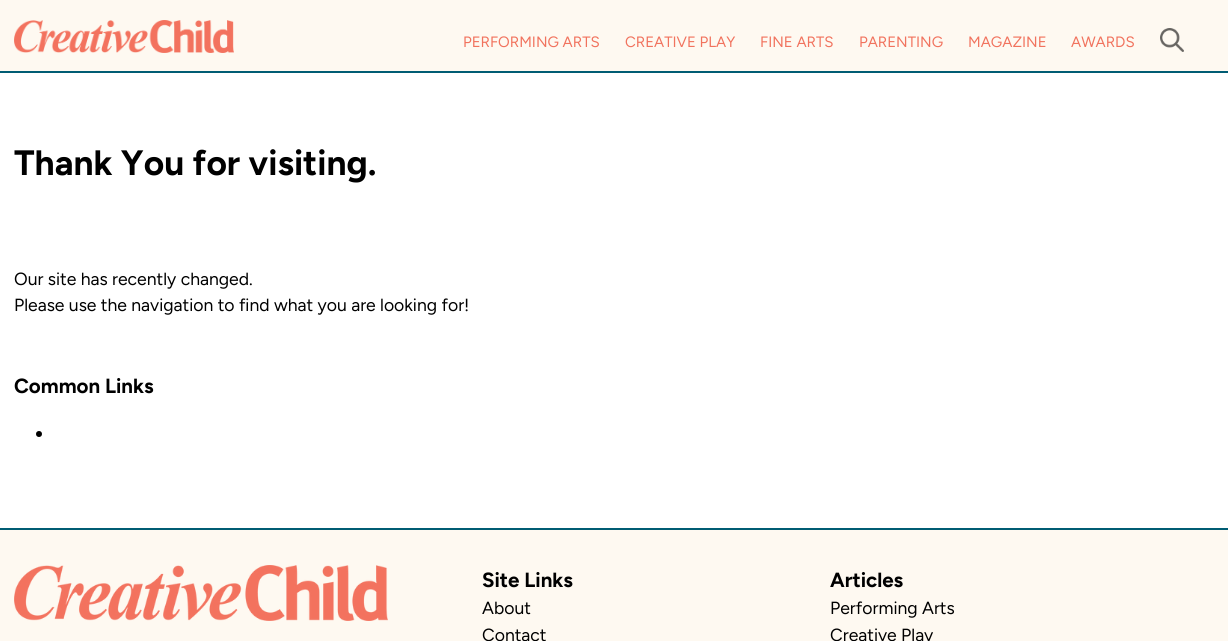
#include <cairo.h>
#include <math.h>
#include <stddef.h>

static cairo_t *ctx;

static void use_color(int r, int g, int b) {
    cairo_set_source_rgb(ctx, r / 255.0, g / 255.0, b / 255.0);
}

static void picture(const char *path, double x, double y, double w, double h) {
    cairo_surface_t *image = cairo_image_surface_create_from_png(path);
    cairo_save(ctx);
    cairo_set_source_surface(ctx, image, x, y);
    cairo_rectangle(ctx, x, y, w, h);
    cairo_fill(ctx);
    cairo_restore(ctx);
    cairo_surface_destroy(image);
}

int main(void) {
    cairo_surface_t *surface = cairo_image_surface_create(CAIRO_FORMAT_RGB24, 1228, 641);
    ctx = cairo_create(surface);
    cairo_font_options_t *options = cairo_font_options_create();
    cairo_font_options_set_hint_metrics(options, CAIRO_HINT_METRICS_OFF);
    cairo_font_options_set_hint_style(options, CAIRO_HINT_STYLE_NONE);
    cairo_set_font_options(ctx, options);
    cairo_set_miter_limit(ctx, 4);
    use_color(255, 255, 255);
    cairo_paint(ctx);
    use_color(254, 249, 241);
    cairo_rectangle(ctx, 0, 0, 1228, 71);
    cairo_fill(ctx);
    use_color(0, 92, 115);
    cairo_rectangle(ctx, 0, 71, 1228, 2);
    cairo_fill(ctx);
    picture("img1.png", 14, 20, 220, 33);
    cairo_select_font_face(ctx, "Figtree", CAIRO_FONT_SLANT_NORMAL, CAIRO_FONT_WEIGHT_NORMAL);
    cairo_set_font_size(ctx, 15);
    use_color(241, 115, 94);
    cairo_move_to(ctx, 463, 47);
    cairo_show_text(ctx, "PERFORMING ARTS");
    cairo_move_to(ctx, 625, 47);
    cairo_show_text(ctx, "CREATIVE PLAY");
    cairo_move_to(ctx, 760, 47);
    cairo_show_text(ctx, "FINE ARTS");
    cairo_move_to(ctx, 859, 47);
    cairo_show_text(ctx, "PARENTING");
    cairo_move_to(ctx, 968, 47);
    cairo_show_text(ctx, "MAGAZINE");
    cairo_move_to(ctx, 1071, 47);
    cairo_show_text(ctx, "AWARDS");
    picture("img2.png", 1160, 28, 24, 24);
    cairo_select_font_face(ctx, "Figtree", CAIRO_FONT_SLANT_NORMAL, CAIRO_FONT_WEIGHT_BOLD);
    cairo_set_font_size(ctx, 35.25);
    use_color(0, 0, 0);
    cairo_move_to(ctx, 14, 175);
    cairo_show_text(ctx, "Thank You for visiting.");
    cairo_select_font_face(ctx, "Figtree", CAIRO_FONT_SLANT_NORMAL, CAIRO_FONT_WEIGHT_NORMAL);
    cairo_set_font_size(ctx, 17.6);
    cairo_move_to(ctx, 14, 285);
    cairo_show_text(ctx, "Our site has recently changed.");
    cairo_move_to(ctx, 14, 311);
    cairo_show_text(ctx, "Please use the navigation to find what you are looking for!");
    cairo_select_font_face(ctx, "Figtree", CAIRO_FONT_SLANT_NORMAL, CAIRO_FONT_WEIGHT_BOLD);
    cairo_set_font_size(ctx, 20.5);
    cairo_move_to(ctx, 14, 393);
    cairo_show_text(ctx, "Common Links");
    cairo_new_path(ctx);
    cairo_arc(ctx, 39, 434, 3, 0, 2 * M_PI);
    cairo_fill(ctx);
    use_color(254, 249, 241);
    cairo_rectangle(ctx, 0, 530, 1228, 111);
    cairo_fill(ctx);
    use_color(0, 92, 115);
    cairo_rectangle(ctx, 0, 528, 1228, 2);
    cairo_fill(ctx);
    picture("img3.png", 14, 565, 374, 56);
    use_color(0, 0, 0);
    cairo_move_to(ctx, 482, 587);
    cairo_show_text(ctx, "Site Links");
    cairo_select_font_face(ctx, "Figtree", CAIRO_FONT_SLANT_NORMAL, CAIRO_FONT_WEIGHT_NORMAL);
    cairo_set_font_size(ctx, 17.6);
    cairo_move_to(ctx, 482, 614);
    cairo_show_text(ctx, "About");
    cairo_move_to(ctx, 482, 641);
    cairo_show_text(ctx, "Contact");
    cairo_select_font_face(ctx, "Figtree", CAIRO_FONT_SLANT_NORMAL, CAIRO_FONT_WEIGHT_BOLD);
    cairo_set_font_size(ctx, 20.5);
    cairo_move_to(ctx, 830, 587);
    cairo_show_text(ctx, "Articles");
    cairo_select_font_face(ctx, "Figtree", CAIRO_FONT_SLANT_NORMAL, CAIRO_FONT_WEIGHT_NORMAL);
    cairo_set_font_size(ctx, 17.6);
    cairo_move_to(ctx, 830, 614);
    cairo_show_text(ctx, "Performing Arts");
    cairo_move_to(ctx, 830, 641);
    cairo_show_text(ctx, "Creative Play");
    cairo_surface_write_to_png(surface, "result.png");
    cairo_font_options_destroy(options);
    cairo_destroy(ctx);
    cairo_surface_destroy(surface);
    return 0;
}
